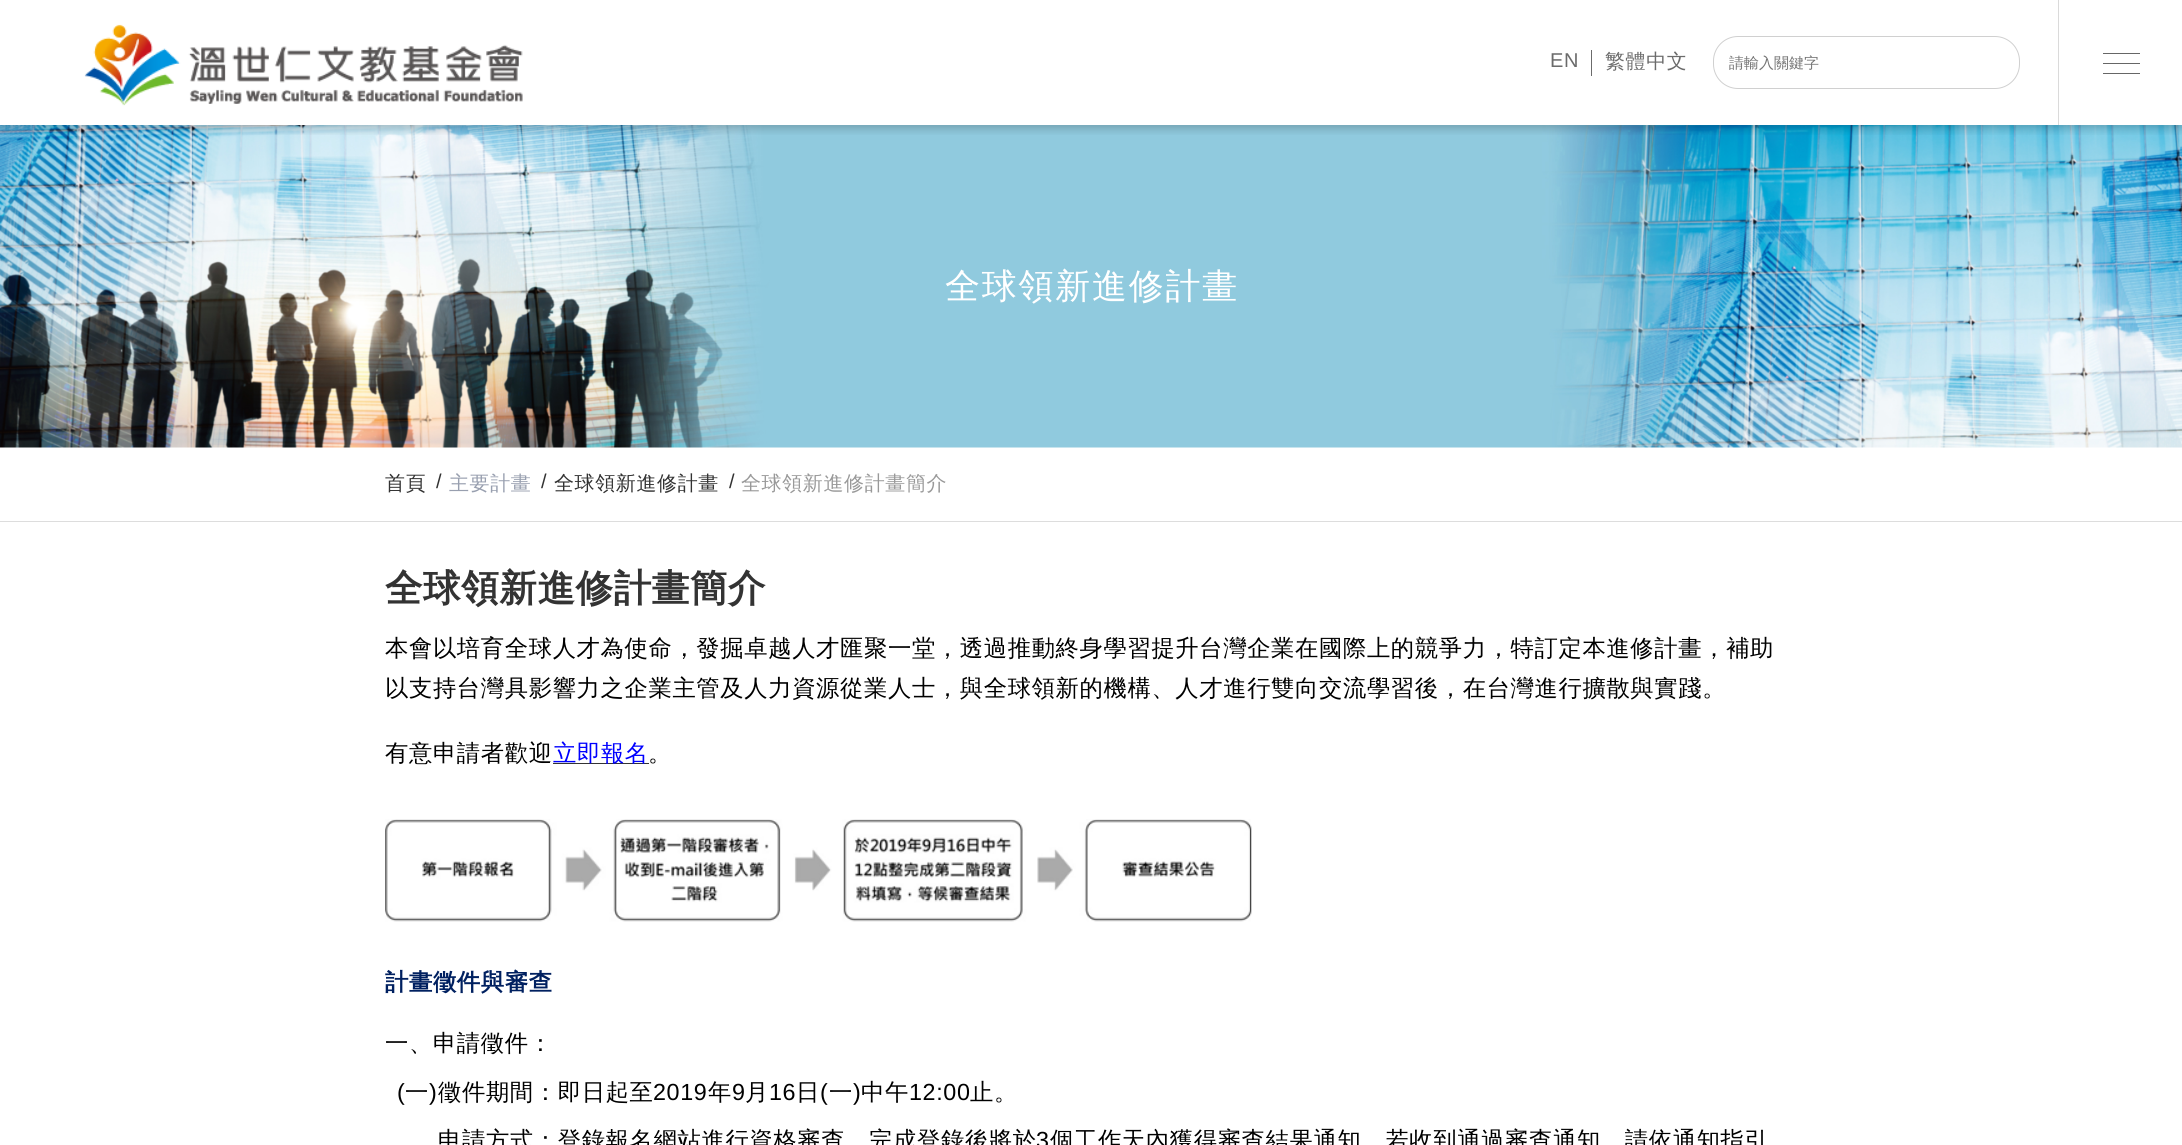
#include <cairo.h>
#include <math.h>
#include <stddef.h>

static cairo_t *ctx;

static void use_color(int r, int g, int b) {
    cairo_set_source_rgb(ctx, r / 255.0, g / 255.0, b / 255.0);
}

static void spaced_text(double x, double y, const char *s, double letter, double word) {
    cairo_move_to(ctx, x, y);
    while (*s) {
        char ch[5] = {0};
        int n = 0;
        do ch[n++] = *s++; while ((*s & 0xC0) == 0x80);
        cairo_show_text(ctx, ch);
        cairo_rel_move_to(ctx, letter + word * (*ch == ' '), 0);
    }
}

static void round_rect(double x, double y, double w, double h, double r) {
    cairo_new_sub_path(ctx);
    cairo_arc(ctx, x + w - r, y + h - r, r, 0, M_PI / 2);
    cairo_arc(ctx, x + r, y + h - r, r, M_PI / 2, M_PI);
    cairo_arc(ctx, x + r, y + r, r, M_PI, 1.5 * M_PI);
    cairo_arc(ctx, x + w - r, y + r, r, 1.5 * M_PI, 2 * M_PI);
    cairo_close_path(ctx);
}

static void shadow(double x, double y, double w, double h, double r, double blur, double alpha) {
    cairo_push_group_with_content(ctx, CAIRO_CONTENT_ALPHA);
    cairo_set_operator(ctx, CAIRO_OPERATOR_SOURCE);
    for (int i = 15; i >= -15 && fmin(w, h) + blur * i / 3 > 0; i -= 2) {
        double e = blur * i / 6;
        cairo_set_source_rgba(ctx, 0, 0, 0, alpha * erfc((i - 1) / 8.5) / 2);
        round_rect(x - e, y - e, w + 2 * e, h + 2 * e, fmax(0, fmin(r + e + blur * .6, fmin(w, h) / 2 + e)));
        cairo_fill(ctx);
    }
    cairo_pattern_t *soft = cairo_pop_group(ctx);
    cairo_mask(ctx, soft);
    cairo_pattern_destroy(soft);
}

static void picture(const char *path, double x, double y, double w, double h) {
    cairo_surface_t *image = cairo_image_surface_create_from_png(path);
    cairo_save(ctx);
    cairo_set_source_surface(ctx, image, x, y);
    cairo_rectangle(ctx, x, y, w, h);
    cairo_fill(ctx);
    cairo_restore(ctx);
    cairo_surface_destroy(image);
}

int main(void) {
    cairo_surface_t *surface = cairo_image_surface_create(CAIRO_FORMAT_RGB24, 2182, 1145);
    ctx = cairo_create(surface);
    cairo_font_options_t *options = cairo_font_options_create();
    cairo_font_options_set_hint_metrics(options, CAIRO_HINT_METRICS_OFF);
    cairo_font_options_set_hint_style(options, CAIRO_HINT_STYLE_NONE);
    cairo_set_font_options(ctx, options);
    cairo_set_miter_limit(ctx, 4);
    use_color(255, 255, 255);
    cairo_paint(ctx);
    picture("img2.png", 0, 125, 2182, 323);
    cairo_save(ctx);
    cairo_rectangle(ctx, 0, 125, 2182, 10);
    cairo_clip(ctx);
    use_color(0, 0, 0);
    shadow(0, 4, 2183, 125, 0, 4.5, 0.2);
    cairo_restore(ctx);
    picture("img1.png", 84, 24, 439, 82);
    cairo_select_font_face(ctx, "Liberation Sans", CAIRO_FONT_SLANT_NORMAL, CAIRO_FONT_WEIGHT_NORMAL);
    cairo_set_font_size(ctx, 20);
    use_color(107, 107, 107);
    spaced_text(1550, 67, "EN", 0.62, 0);
    cairo_rectangle(ctx, 1591, 50, 1, 26);
    cairo_fill(ctx);
    cairo_select_font_face(ctx, "WenQuanYi Zen Hei Medium", CAIRO_FONT_SLANT_NORMAL, CAIRO_FONT_WEIGHT_NORMAL);
    spaced_text(1605, 68, "繁體中文", 0.62, 0);
    round_rect(1713.5, 36.5, 306, 52, 24.5);
    use_color(208, 208, 208);
    cairo_set_line_width(ctx, 1);
    cairo_stroke(ctx);
    cairo_set_font_size(ctx, 15);
    use_color(117, 117, 117);
    cairo_move_to(ctx, 1729, 68);
    cairo_show_text(ctx, "請輸入關鍵字");
    use_color(218, 218, 218);
    cairo_rectangle(ctx, 2058, 0, 1, 125);
    cairo_fill(ctx);
    use_color(102, 102, 102);
    cairo_rectangle(ctx, 2103, 53, 37, 1);
    cairo_fill(ctx);
    cairo_rectangle(ctx, 2103, 63, 37, 1);
    cairo_fill(ctx);
    cairo_rectangle(ctx, 2103, 73, 37, 1);
    cairo_fill(ctx);
    cairo_set_font_size(ctx, 35);
    use_color(255, 255, 255);
    spaced_text(945, 298, "全球領新進修計畫", 1.75, 0);
    use_color(221, 221, 221);
    cairo_rectangle(ctx, 0, 521, 2182, 1);
    cairo_fill(ctx);
    cairo_set_font_size(ctx, 20);
    use_color(51, 51, 51);
    spaced_text(385, 490, "首頁", 0.62, 0);
    cairo_select_font_face(ctx, "Liberation Sans", CAIRO_FONT_SLANT_NORMAL, CAIRO_FONT_WEIGHT_NORMAL);
    spaced_text(436, 488, "/", 0.62, 0);
    cairo_select_font_face(ctx, "WenQuanYi Zen Hei Medium", CAIRO_FONT_SLANT_NORMAL, CAIRO_FONT_WEIGHT_NORMAL);
    use_color(152, 159, 175);
    spaced_text(449, 490, "主要計畫", 0.62, 0);
    cairo_select_font_face(ctx, "Liberation Sans", CAIRO_FONT_SLANT_NORMAL, CAIRO_FONT_WEIGHT_NORMAL);
    use_color(51, 51, 51);
    spaced_text(541, 488, "/", 0.62, 0);
    cairo_select_font_face(ctx, "WenQuanYi Zen Hei Medium", CAIRO_FONT_SLANT_NORMAL, CAIRO_FONT_WEIGHT_NORMAL);
    spaced_text(554, 490, "全球領新進修計畫", 0.62, 0);
    cairo_select_font_face(ctx, "Liberation Sans", CAIRO_FONT_SLANT_NORMAL, CAIRO_FONT_WEIGHT_NORMAL);
    spaced_text(729, 488, "/", 0.62, 0);
    cairo_select_font_face(ctx, "WenQuanYi Zen Hei Medium", CAIRO_FONT_SLANT_NORMAL, CAIRO_FONT_WEIGHT_NORMAL);
    use_color(153, 153, 153);
    spaced_text(741, 490, "全球領新進修計畫簡介", 0.62, 0);
    cairo_select_font_face(ctx, "WenQuanYi Zen Hei", CAIRO_FONT_SLANT_NORMAL, CAIRO_FONT_WEIGHT_BOLD);
    cairo_set_font_size(ctx, 37.5);
    use_color(51, 51, 51);
    spaced_text(385, 601, "全球領新進修計畫簡介", 0.62, 0);
    cairo_select_font_face(ctx, "WenQuanYi Zen Hei Medium", CAIRO_FONT_SLANT_NORMAL, CAIRO_FONT_WEIGHT_NORMAL);
    cairo_set_font_size(ctx, 23.33);
    use_color(0, 0, 0);
    spaced_text(385, 656, "本會以培育全球人才為使命，發掘卓越人才匯聚一堂，透過推動終身學習提升台灣企業在國際上的競爭力，特訂定本進修計畫，補助", 0.62, 0);
    spaced_text(385, 696, "以支持台灣具影響力之企業主管及人力資源從業人士，與全球領新的機構、人才進行雙向交流學習後，在台灣進行擴散與實踐。", 0.62, 0);
    spaced_text(385, 761, "有意申請者歡迎", 0.62, 0);
    use_color(51, 51, 51);
    cairo_rectangle(ctx, 553, 763, 96, 1);
    cairo_fill(ctx);
    use_color(0, 0, 255);
    spaced_text(553, 761, "立即報名", 0.62, 0);
    use_color(0, 0, 0);
    spaced_text(648, 761, "。", 0.62, 0);
    picture("img3.png", 385, 819, 867, 103);
    cairo_select_font_face(ctx, "WenQuanYi Zen Hei", CAIRO_FONT_SLANT_NORMAL, CAIRO_FONT_WEIGHT_BOLD);
    use_color(0, 32, 96);
    spaced_text(385, 990, "計畫徵件與審查", 0.62, 0);
    cairo_select_font_face(ctx, "WenQuanYi Zen Hei Medium", CAIRO_FONT_SLANT_NORMAL, CAIRO_FONT_WEIGHT_NORMAL);
    use_color(0, 0, 0);
    spaced_text(385, 1051, "一、申請徵件：", 0.62, 0);
    cairo_select_font_face(ctx, "Liberation Sans", CAIRO_FONT_SLANT_NORMAL, CAIRO_FONT_WEIGHT_NORMAL);
    spaced_text(397, 1100, "(", 0.62, 0);
    cairo_select_font_face(ctx, "WenQuanYi Zen Hei Medium", CAIRO_FONT_SLANT_NORMAL, CAIRO_FONT_WEIGHT_NORMAL);
    spaced_text(405, 1100, "一", 0.62, 0);
    cairo_select_font_face(ctx, "Liberation Sans", CAIRO_FONT_SLANT_NORMAL, CAIRO_FONT_WEIGHT_NORMAL);
    spaced_text(429, 1100, ")", 0.62, 0);
    cairo_select_font_face(ctx, "WenQuanYi Zen Hei Medium", CAIRO_FONT_SLANT_NORMAL, CAIRO_FONT_WEIGHT_NORMAL);
    spaced_text(438, 1100, "徵件期間：即日起至", 0.62, 0);
    cairo_select_font_face(ctx, "Liberation Sans", CAIRO_FONT_SLANT_NORMAL, CAIRO_FONT_WEIGHT_NORMAL);
    spaced_text(653, 1100, "2019", 0.62, 0);
    cairo_select_font_face(ctx, "WenQuanYi Zen Hei Medium", CAIRO_FONT_SLANT_NORMAL, CAIRO_FONT_WEIGHT_NORMAL);
    spaced_text(708, 1100, "年", 0.62, 0);
    cairo_select_font_face(ctx, "Liberation Sans", CAIRO_FONT_SLANT_NORMAL, CAIRO_FONT_WEIGHT_NORMAL);
    spaced_text(732, 1100, "9", 0.62, 0);
    cairo_select_font_face(ctx, "WenQuanYi Zen Hei Medium", CAIRO_FONT_SLANT_NORMAL, CAIRO_FONT_WEIGHT_NORMAL);
    spaced_text(745, 1100, "月", 0.62, 0);
    cairo_select_font_face(ctx, "Liberation Sans", CAIRO_FONT_SLANT_NORMAL, CAIRO_FONT_WEIGHT_NORMAL);
    spaced_text(769, 1100, "16", 0.62, 0);
    cairo_select_font_face(ctx, "WenQuanYi Zen Hei Medium", CAIRO_FONT_SLANT_NORMAL, CAIRO_FONT_WEIGHT_NORMAL);
    spaced_text(796, 1100, "日", 0.62, 0);
    cairo_select_font_face(ctx, "Liberation Sans", CAIRO_FONT_SLANT_NORMAL, CAIRO_FONT_WEIGHT_NORMAL);
    spaced_text(820, 1100, "(", 0.62, 0);
    cairo_select_font_face(ctx, "WenQuanYi Zen Hei Medium", CAIRO_FONT_SLANT_NORMAL, CAIRO_FONT_WEIGHT_NORMAL);
    spaced_text(829, 1100, "一", 0.62, 0);
    cairo_select_font_face(ctx, "Liberation Sans", CAIRO_FONT_SLANT_NORMAL, CAIRO_FONT_WEIGHT_NORMAL);
    spaced_text(853, 1100, ")", 0.62, 0);
    cairo_select_font_face(ctx, "WenQuanYi Zen Hei Medium", CAIRO_FONT_SLANT_NORMAL, CAIRO_FONT_WEIGHT_NORMAL);
    spaced_text(861, 1100, "中午", 0.62, 0);
    cairo_select_font_face(ctx, "Liberation Sans", CAIRO_FONT_SLANT_NORMAL, CAIRO_FONT_WEIGHT_NORMAL);
    spaced_text(909, 1100, "12:00", 0.62, 0);
    cairo_select_font_face(ctx, "WenQuanYi Zen Hei Medium", CAIRO_FONT_SLANT_NORMAL, CAIRO_FONT_WEIGHT_NORMAL);
    spaced_text(970, 1100, "止。", 0.62, 0);
    spaced_text(438, 1148, "申請方式：登錄報名網站進行資格審查，完成登錄後將於", 0.62, 0);
    cairo_select_font_face(ctx, "Liberation Sans", CAIRO_FONT_SLANT_NORMAL, CAIRO_FONT_WEIGHT_NORMAL);
    spaced_text(1036, 1148, "3", 0.62, 0);
    cairo_select_font_face(ctx, "WenQuanYi Zen Hei Medium", CAIRO_FONT_SLANT_NORMAL, CAIRO_FONT_WEIGHT_NORMAL);
    spaced_text(1050, 1148, "個工作天內獲得審查結果通知。若收到通過審查通知，請依通知指引", 0.62, 0);
    cairo_surface_write_to_png(surface, "result.png");
    cairo_font_options_destroy(options);
    cairo_destroy(ctx);
    cairo_surface_destroy(surface);
    return 0;
}
